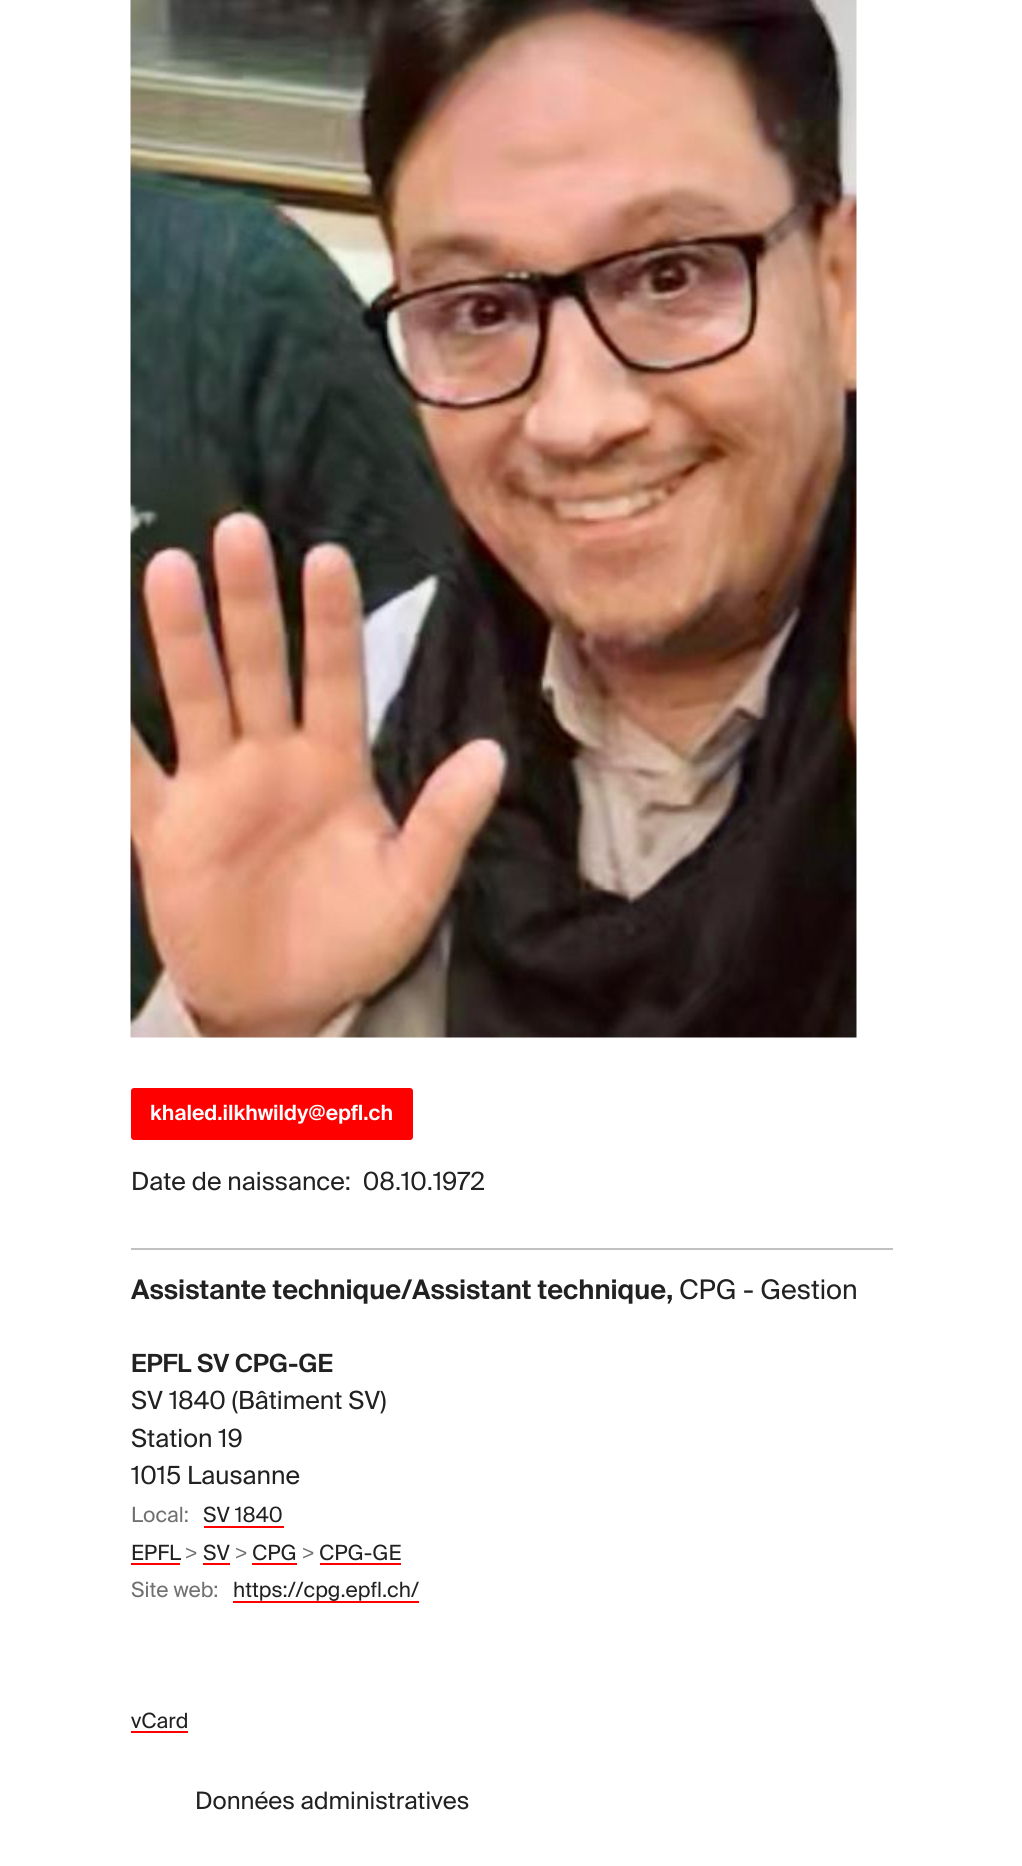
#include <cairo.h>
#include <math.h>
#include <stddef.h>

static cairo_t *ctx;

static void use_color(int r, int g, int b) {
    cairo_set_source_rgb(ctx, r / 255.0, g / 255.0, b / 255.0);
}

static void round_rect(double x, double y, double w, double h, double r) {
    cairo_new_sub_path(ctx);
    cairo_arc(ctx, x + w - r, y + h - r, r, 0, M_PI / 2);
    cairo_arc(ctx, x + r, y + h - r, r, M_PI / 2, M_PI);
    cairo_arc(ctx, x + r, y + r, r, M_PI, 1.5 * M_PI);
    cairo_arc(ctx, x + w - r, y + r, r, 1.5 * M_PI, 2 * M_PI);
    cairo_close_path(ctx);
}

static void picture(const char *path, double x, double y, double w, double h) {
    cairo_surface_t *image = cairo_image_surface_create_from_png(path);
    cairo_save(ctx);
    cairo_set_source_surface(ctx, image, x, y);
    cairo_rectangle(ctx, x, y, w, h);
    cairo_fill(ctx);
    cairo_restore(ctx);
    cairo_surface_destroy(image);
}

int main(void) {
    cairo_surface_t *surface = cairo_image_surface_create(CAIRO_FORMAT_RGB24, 1022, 1866);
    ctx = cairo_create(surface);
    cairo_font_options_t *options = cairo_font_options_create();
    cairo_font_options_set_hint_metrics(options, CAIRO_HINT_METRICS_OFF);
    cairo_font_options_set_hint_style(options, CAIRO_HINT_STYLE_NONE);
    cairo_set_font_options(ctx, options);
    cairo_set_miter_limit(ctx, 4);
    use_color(255, 255, 255);
    cairo_paint(ctx);
    picture("img1.png", 130, 0, 727, 1038);
    use_color(255, 0, 0);
    round_rect(132, 1089, 280, 50, 2);
    cairo_fill_preserve(ctx);
    cairo_stroke(ctx);
    cairo_select_font_face(ctx, "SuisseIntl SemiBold", CAIRO_FONT_SLANT_NORMAL, CAIRO_FONT_WEIGHT_NORMAL);
    cairo_set_font_size(ctx, 21);
    use_color(255, 255, 255);
    cairo_move_to(ctx, 150, 1120);
    cairo_show_text(ctx, "khaled.ilkhwildy@epfl.ch");
    cairo_select_font_face(ctx, "SuisseIntl", CAIRO_FONT_SLANT_NORMAL, CAIRO_FONT_WEIGHT_NORMAL);
    cairo_set_font_size(ctx, 25);
    use_color(33, 33, 33);
    cairo_move_to(ctx, 131, 1190);
    cairo_show_text(ctx, "Date de naissance:  08.10.1972");
    use_color(193, 193, 193);
    cairo_rectangle(ctx, 131, 1248, 762, 2);
    cairo_fill(ctx);
    cairo_select_font_face(ctx, "SuisseIntl SemiBold", CAIRO_FONT_SLANT_NORMAL, CAIRO_FONT_WEIGHT_NORMAL);
    cairo_set_font_size(ctx, 27);
    use_color(33, 33, 33);
    cairo_move_to(ctx, 131, 1299);
    cairo_show_text(ctx, "Assistante technique/Assistant technique,");
    cairo_select_font_face(ctx, "SuisseIntl", CAIRO_FONT_SLANT_NORMAL, CAIRO_FONT_WEIGHT_NORMAL);
    cairo_move_to(ctx, 679, 1299);
    cairo_show_text(ctx, "CPG - Gestion");
    cairo_select_font_face(ctx, "SuisseIntl SemiBold", CAIRO_FONT_SLANT_NORMAL, CAIRO_FONT_WEIGHT_NORMAL);
    cairo_set_font_size(ctx, 25);
    cairo_move_to(ctx, 131, 1372);
    cairo_show_text(ctx, "EPFL SV CPG-GE");
    cairo_select_font_face(ctx, "SuisseIntl", CAIRO_FONT_SLANT_NORMAL, CAIRO_FONT_WEIGHT_NORMAL);
    cairo_move_to(ctx, 131, 1409);
    cairo_show_text(ctx, "SV 1840 (Bâtiment SV)");
    cairo_move_to(ctx, 131, 1447);
    cairo_show_text(ctx, "Station 19");
    cairo_move_to(ctx, 131, 1484);
    cairo_show_text(ctx, "1015 Lausanne");
    cairo_set_font_size(ctx, 21);
    use_color(112, 112, 112);
    cairo_move_to(ctx, 131, 1522);
    cairo_show_text(ctx, "Local:");
    use_color(33, 33, 33);
    cairo_move_to(ctx, 203, 1522);
    cairo_show_text(ctx, "SV 1840");
    use_color(255, 0, 0);
    cairo_rectangle(ctx, 204, 1526, 80, 2);
    cairo_fill(ctx);
    use_color(33, 33, 33);
    cairo_move_to(ctx, 131, 1560);
    cairo_show_text(ctx, "EPFL");
    use_color(255, 0, 0);
    cairo_rectangle(ctx, 131, 1563, 49, 2);
    cairo_fill(ctx);
    cairo_select_font_face(ctx, "Liberation Sans", CAIRO_FONT_SLANT_NORMAL, CAIRO_FONT_WEIGHT_NORMAL);
    use_color(112, 112, 112);
    cairo_move_to(ctx, 185, 1560);
    cairo_show_text(ctx, ">");
    cairo_select_font_face(ctx, "SuisseIntl", CAIRO_FONT_SLANT_NORMAL, CAIRO_FONT_WEIGHT_NORMAL);
    use_color(33, 33, 33);
    cairo_move_to(ctx, 203, 1560);
    cairo_show_text(ctx, "SV");
    use_color(255, 0, 0);
    cairo_rectangle(ctx, 203, 1563, 27, 2);
    cairo_fill(ctx);
    cairo_select_font_face(ctx, "Liberation Sans", CAIRO_FONT_SLANT_NORMAL, CAIRO_FONT_WEIGHT_NORMAL);
    use_color(112, 112, 112);
    cairo_move_to(ctx, 235, 1560);
    cairo_show_text(ctx, ">");
    cairo_select_font_face(ctx, "SuisseIntl", CAIRO_FONT_SLANT_NORMAL, CAIRO_FONT_WEIGHT_NORMAL);
    use_color(33, 33, 33);
    cairo_move_to(ctx, 252, 1560);
    cairo_show_text(ctx, "CPG");
    use_color(255, 0, 0);
    cairo_rectangle(ctx, 252, 1563, 45, 2);
    cairo_fill(ctx);
    cairo_select_font_face(ctx, "Liberation Sans", CAIRO_FONT_SLANT_NORMAL, CAIRO_FONT_WEIGHT_NORMAL);
    use_color(112, 112, 112);
    cairo_move_to(ctx, 302, 1560);
    cairo_show_text(ctx, ">");
    cairo_select_font_face(ctx, "SuisseIntl", CAIRO_FONT_SLANT_NORMAL, CAIRO_FONT_WEIGHT_NORMAL);
    use_color(33, 33, 33);
    cairo_move_to(ctx, 319, 1560);
    cairo_show_text(ctx, "CPG-GE");
    use_color(255, 0, 0);
    cairo_rectangle(ctx, 320, 1563, 81, 2);
    cairo_fill(ctx);
    use_color(112, 112, 112);
    cairo_move_to(ctx, 131, 1597);
    cairo_show_text(ctx, "Site web:");
    use_color(33, 33, 33);
    cairo_move_to(ctx, 233, 1597);
    cairo_show_text(ctx, "https://cpg.epfl.ch/");
    use_color(255, 0, 0);
    cairo_rectangle(ctx, 233, 1601, 186, 2);
    cairo_fill(ctx);
    use_color(33, 33, 33);
    cairo_move_to(ctx, 131, 1728);
    cairo_show_text(ctx, "vCard");
    use_color(255, 0, 0);
    cairo_rectangle(ctx, 131, 1731, 57, 2);
    cairo_fill(ctx);
    cairo_set_font_size(ctx, 24);
    use_color(33, 33, 33);
    cairo_move_to(ctx, 195, 1809);
    cairo_show_text(ctx, "Données administratives");
    cairo_surface_write_to_png(surface, "result.png");
    cairo_font_options_destroy(options);
    cairo_destroy(ctx);
    cairo_surface_destroy(surface);
    return 0;
}
